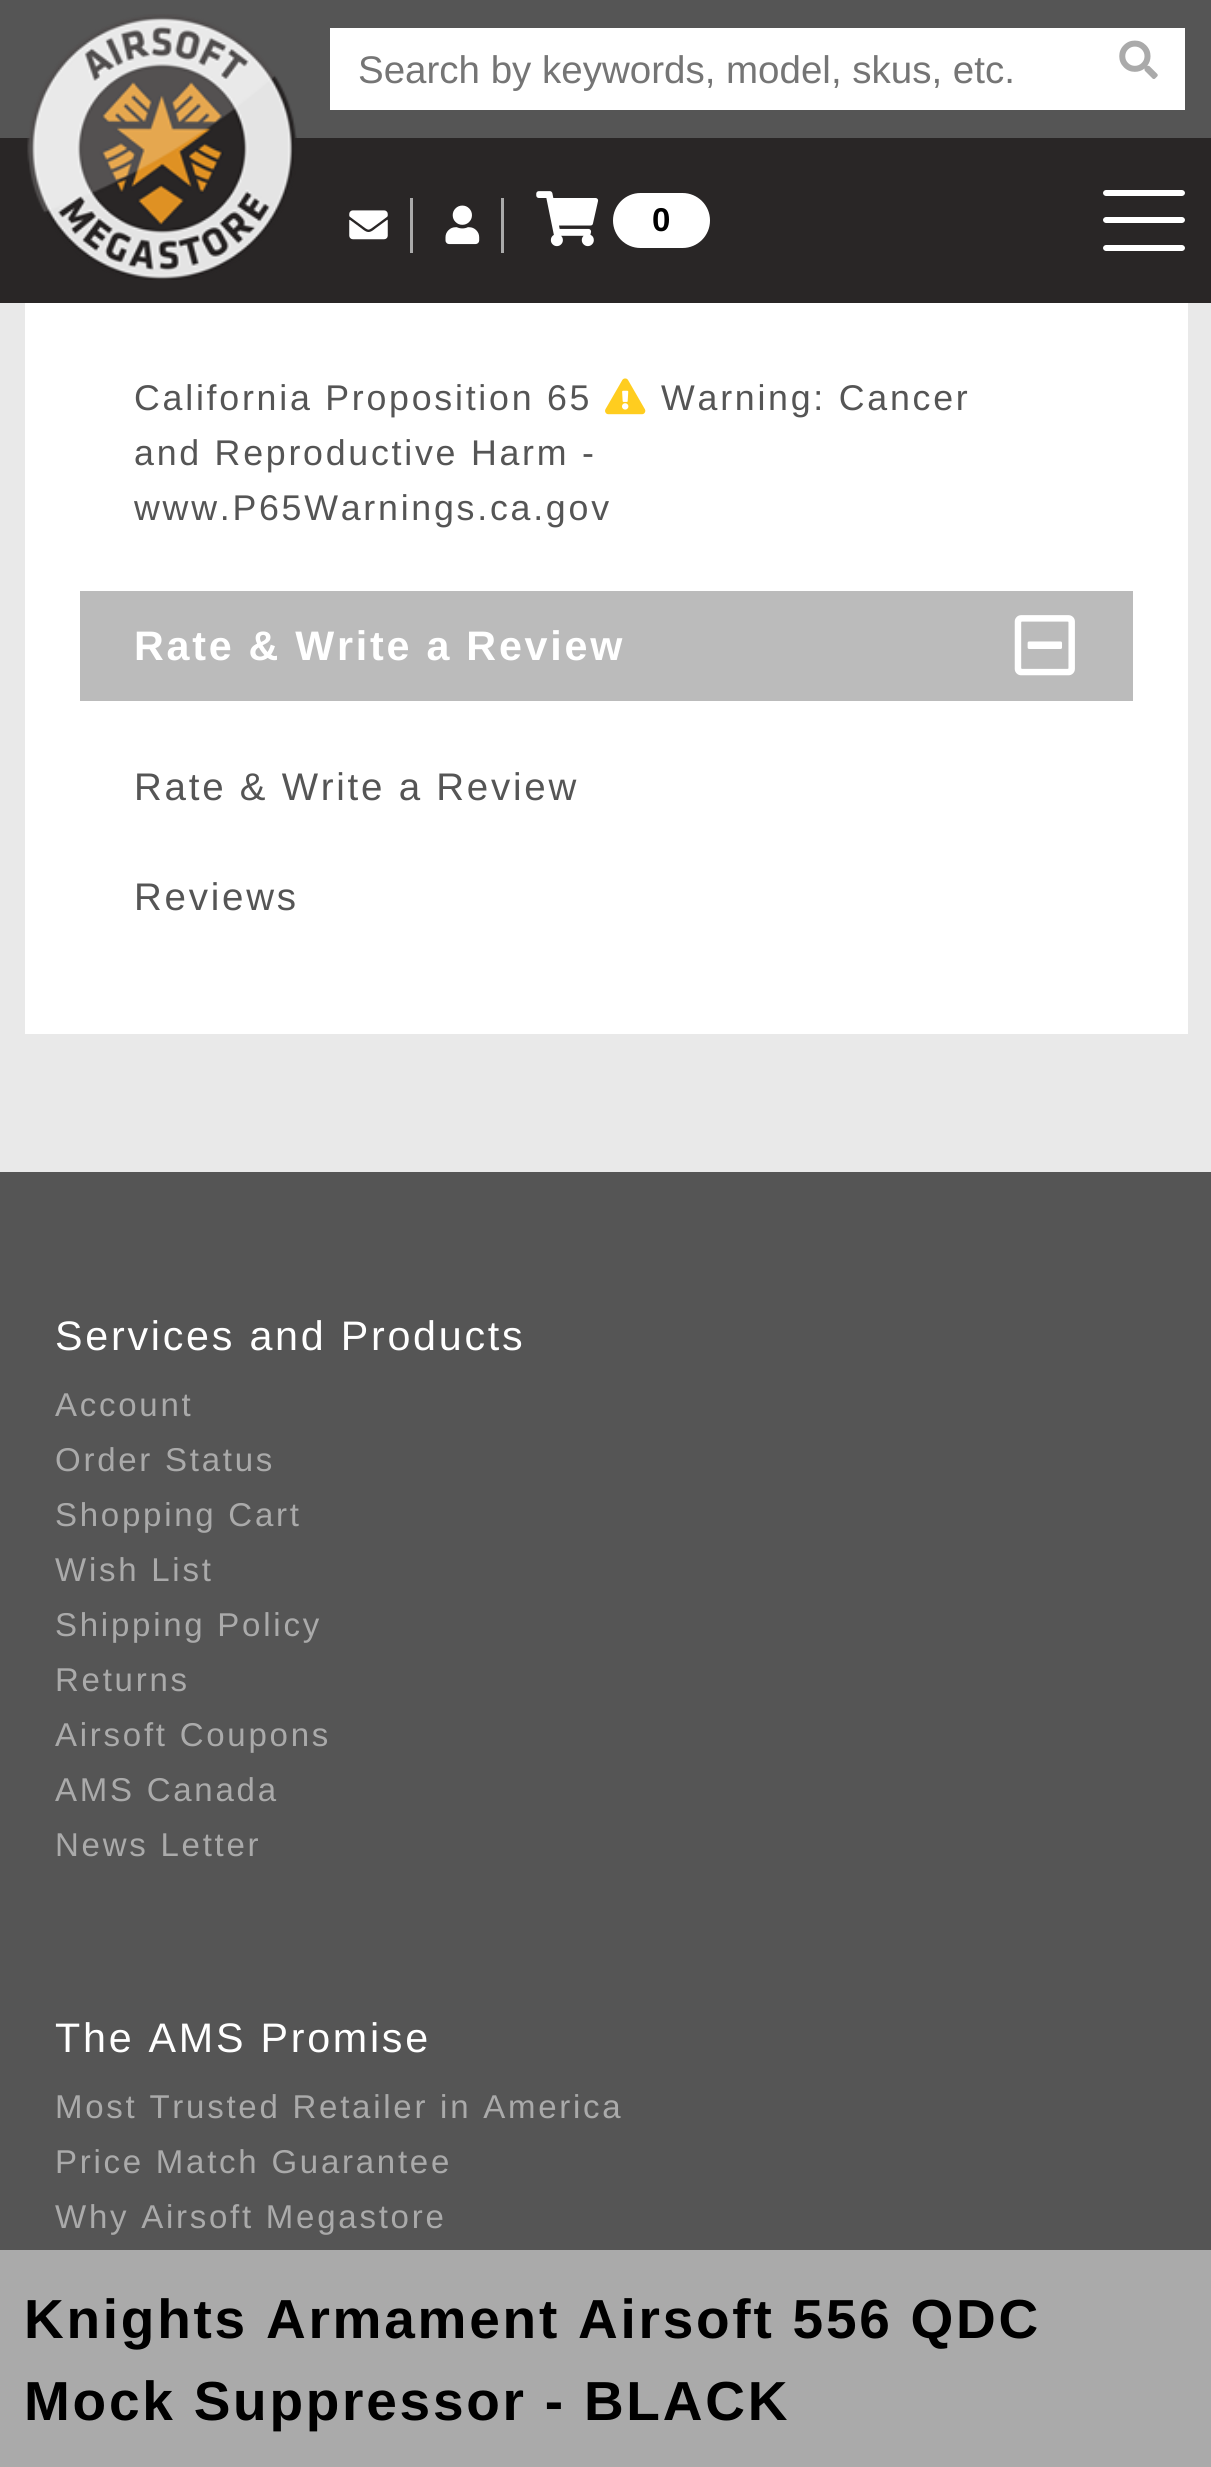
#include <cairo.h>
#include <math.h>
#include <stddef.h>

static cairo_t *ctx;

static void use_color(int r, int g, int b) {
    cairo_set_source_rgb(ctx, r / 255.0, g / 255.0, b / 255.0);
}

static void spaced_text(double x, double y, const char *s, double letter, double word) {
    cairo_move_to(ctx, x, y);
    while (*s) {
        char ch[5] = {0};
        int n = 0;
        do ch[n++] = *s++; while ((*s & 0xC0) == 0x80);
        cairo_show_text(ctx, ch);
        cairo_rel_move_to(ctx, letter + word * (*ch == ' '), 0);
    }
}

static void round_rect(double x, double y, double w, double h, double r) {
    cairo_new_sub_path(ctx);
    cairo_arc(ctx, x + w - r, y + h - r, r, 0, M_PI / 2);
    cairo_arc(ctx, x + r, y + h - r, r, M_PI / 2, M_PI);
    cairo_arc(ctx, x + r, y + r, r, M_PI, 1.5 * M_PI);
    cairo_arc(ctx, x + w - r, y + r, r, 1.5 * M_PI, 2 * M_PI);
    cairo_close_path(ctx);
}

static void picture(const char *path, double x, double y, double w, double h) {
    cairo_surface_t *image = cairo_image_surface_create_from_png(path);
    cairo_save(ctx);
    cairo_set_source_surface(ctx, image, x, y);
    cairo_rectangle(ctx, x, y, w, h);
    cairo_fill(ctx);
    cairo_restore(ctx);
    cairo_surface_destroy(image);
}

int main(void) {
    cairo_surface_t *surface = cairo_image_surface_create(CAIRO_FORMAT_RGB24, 1211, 2467);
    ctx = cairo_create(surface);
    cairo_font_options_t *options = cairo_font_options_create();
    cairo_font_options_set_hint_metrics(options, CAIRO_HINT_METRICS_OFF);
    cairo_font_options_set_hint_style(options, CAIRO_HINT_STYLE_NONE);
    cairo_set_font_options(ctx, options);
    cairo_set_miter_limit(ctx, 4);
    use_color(85, 85, 85);
    cairo_paint(ctx);
    use_color(41, 38, 38);
    cairo_rectangle(ctx, 0, 138, 1211, 165);
    cairo_fill(ctx);
    picture("img1.png", 27, 14, 270, 266);
    use_color(255, 255, 255);
    cairo_rectangle(ctx, 330, 28, 855, 82);
    cairo_fill(ctx);
    cairo_select_font_face(ctx, "Liberation Sans", CAIRO_FONT_SLANT_NORMAL, CAIRO_FONT_WEIGHT_NORMAL);
    cairo_set_font_size(ctx, 38.5);
    use_color(117, 117, 117);
    cairo_move_to(ctx, 358, 83);
    cairo_show_text(ctx, "Search by keywords, model, skus, etc.");
    picture("img2.png", 1119, 40, 39, 39);
    use_color(255, 255, 255);
    cairo_new_path(ctx);
    cairo_move_to(ctx, 1106, 190);
    cairo_line_to(ctx, 1144, 190);
    cairo_line_to(ctx, 1144, 196);
    cairo_line_to(ctx, 1106, 196);
    cairo_curve_to(ctx, 1104.5, 196, 1103, 194.5, 1103, 193);
    cairo_curve_to(ctx, 1103, 191.5, 1104.5, 190, 1106, 190);
    cairo_close_path(ctx);
    cairo_fill(ctx);
    cairo_new_path(ctx);
    cairo_move_to(ctx, 1144, 190);
    cairo_line_to(ctx, 1182, 190);
    cairo_curve_to(ctx, 1183.5, 190, 1185, 191.5, 1185, 193);
    cairo_curve_to(ctx, 1185, 194.5, 1183.5, 196, 1182, 196);
    cairo_line_to(ctx, 1144, 196);
    cairo_close_path(ctx);
    cairo_fill(ctx);
    cairo_new_path(ctx);
    cairo_move_to(ctx, 1106, 217);
    cairo_line_to(ctx, 1144, 217);
    cairo_line_to(ctx, 1144, 223);
    cairo_line_to(ctx, 1106, 223);
    cairo_curve_to(ctx, 1104.5, 223, 1103, 221.5, 1103, 220);
    cairo_curve_to(ctx, 1103, 218.5, 1104.5, 217, 1106, 217);
    cairo_close_path(ctx);
    cairo_fill(ctx);
    cairo_new_path(ctx);
    cairo_move_to(ctx, 1144, 217);
    cairo_line_to(ctx, 1182, 217);
    cairo_curve_to(ctx, 1183.5, 217, 1185, 218.5, 1185, 220);
    cairo_curve_to(ctx, 1185, 221.5, 1183.5, 223, 1182, 223);
    cairo_line_to(ctx, 1144, 223);
    cairo_close_path(ctx);
    cairo_fill(ctx);
    cairo_new_path(ctx);
    cairo_move_to(ctx, 1106, 245);
    cairo_line_to(ctx, 1144, 245);
    cairo_line_to(ctx, 1144, 251);
    cairo_line_to(ctx, 1106, 251);
    cairo_curve_to(ctx, 1104.5, 251, 1103, 249.5, 1103, 248);
    cairo_curve_to(ctx, 1103, 246.5, 1104.5, 245, 1106, 245);
    cairo_close_path(ctx);
    cairo_fill(ctx);
    cairo_new_path(ctx);
    cairo_move_to(ctx, 1144, 245);
    cairo_line_to(ctx, 1182, 245);
    cairo_curve_to(ctx, 1183.5, 245, 1185, 246.5, 1185, 248);
    cairo_curve_to(ctx, 1185, 249.5, 1183.5, 251, 1182, 251);
    cairo_line_to(ctx, 1144, 251);
    cairo_close_path(ctx);
    cairo_fill(ctx);
    use_color(170, 170, 170);
    cairo_rectangle(ctx, 410, 198, 3, 55);
    cairo_fill(ctx);
    picture("img3.png", 349, 210, 39, 30);
    cairo_rectangle(ctx, 501, 198, 3, 55);
    cairo_fill(ctx);
    picture("img4.png", 445, 205, 35, 40);
    picture("img5.png", 536, 191, 63, 56);
    use_color(255, 255, 255);
    round_rect(613, 193, 97, 55, 27.5);
    cairo_fill(ctx);
    cairo_select_font_face(ctx, "Liberation Sans", CAIRO_FONT_SLANT_NORMAL, CAIRO_FONT_WEIGHT_BOLD);
    cairo_set_font_size(ctx, 33);
    use_color(0, 0, 0);
    spaced_text(652, 231, "0", 2.75, 0);
    use_color(233, 233, 233);
    cairo_rectangle(ctx, 0, 303, 1211, 869);
    cairo_fill(ctx);
    use_color(255, 255, 255);
    cairo_rectangle(ctx, 25, 303, 1163, 731);
    cairo_fill(ctx);
    cairo_select_font_face(ctx, "Liberation Sans", CAIRO_FONT_SLANT_NORMAL, CAIRO_FONT_WEIGHT_NORMAL);
    cairo_set_font_size(ctx, 35.75);
    use_color(85, 85, 85);
    spaced_text(134, 410, "California Proposition 65", 2.75, 0);
    picture("img6.png", 605, 378, 41, 37);
    spaced_text(661, 410, "Warning: Cancer", 2.75, 0);
    spaced_text(134, 465, "and Reproductive Harm -", 2.75, 0);
    spaced_text(134, 520, "www.P65Warnings.ca.gov", 2.75, 0);
    use_color(187, 187, 187);
    cairo_rectangle(ctx, 80, 591, 1053, 110);
    cairo_fill(ctx);
    cairo_select_font_face(ctx, "Liberation Sans", CAIRO_FONT_SLANT_NORMAL, CAIRO_FONT_WEIGHT_BOLD);
    cairo_set_font_size(ctx, 41.25);
    use_color(255, 255, 255);
    spaced_text(134, 660, "Rate & Write a Review", 2.75, 0);
    picture("img7.png", 1014, 615, 61, 61);
    cairo_select_font_face(ctx, "Liberation Sans", CAIRO_FONT_SLANT_NORMAL, CAIRO_FONT_WEIGHT_NORMAL);
    cairo_set_font_size(ctx, 38.5);
    use_color(85, 85, 85);
    spaced_text(134, 800, "Rate & Write a Review", 2.75, 0);
    spaced_text(134, 910, "Reviews", 2.75, 0);
    use_color(170, 170, 170);
    cairo_rectangle(ctx, 0, 2250, 1211, 217);
    cairo_fill(ctx);
    cairo_select_font_face(ctx, "Liberation Sans", CAIRO_FONT_SLANT_NORMAL, CAIRO_FONT_WEIGHT_BOLD);
    cairo_set_font_size(ctx, 55);
    use_color(0, 0, 0);
    spaced_text(24, 2338, "Knights Armament Airsoft 556 QDC", 2.75, 0);
    spaced_text(24, 2420, "Mock Suppressor - BLACK", 2.75, 0);
    cairo_select_font_face(ctx, "Liberation Sans", CAIRO_FONT_SLANT_NORMAL, CAIRO_FONT_WEIGHT_NORMAL);
    cairo_set_font_size(ctx, 41.25);
    use_color(255, 255, 255);
    spaced_text(55, 1350, "Services and Products", 2.75, 0);
    cairo_set_font_size(ctx, 33);
    use_color(170, 170, 170);
    spaced_text(55, 1416, "Account", 2.75, 0);
    spaced_text(55, 1471, "Order Status", 2.75, 0);
    spaced_text(55, 1526, "Shopping Cart", 2.75, 0);
    spaced_text(55, 1581, "Wish List", 2.75, 0);
    spaced_text(55, 1636, "Shipping Policy", 2.75, 0);
    spaced_text(55, 1691, "Returns", 2.75, 0);
    spaced_text(55, 1746, "Airsoft Coupons", 2.75, 0);
    spaced_text(55, 1801, "AMS Canada", 2.75, 0);
    spaced_text(55, 1856, "News Letter", 2.75, 0);
    cairo_set_font_size(ctx, 41.25);
    use_color(255, 255, 255);
    spaced_text(55, 2052, "The AMS Promise", 2.75, 0);
    cairo_set_font_size(ctx, 33);
    use_color(170, 170, 170);
    spaced_text(55, 2118, "Most Trusted Retailer in America", 2.75, 0);
    spaced_text(55, 2173, "Price Match Guarantee", 2.75, 0);
    spaced_text(55, 2228, "Why Airsoft Megastore", 2.75, 0);
    cairo_surface_write_to_png(surface, "result.png");
    cairo_font_options_destroy(options);
    cairo_destroy(ctx);
    cairo_surface_destroy(surface);
    return 0;
}
